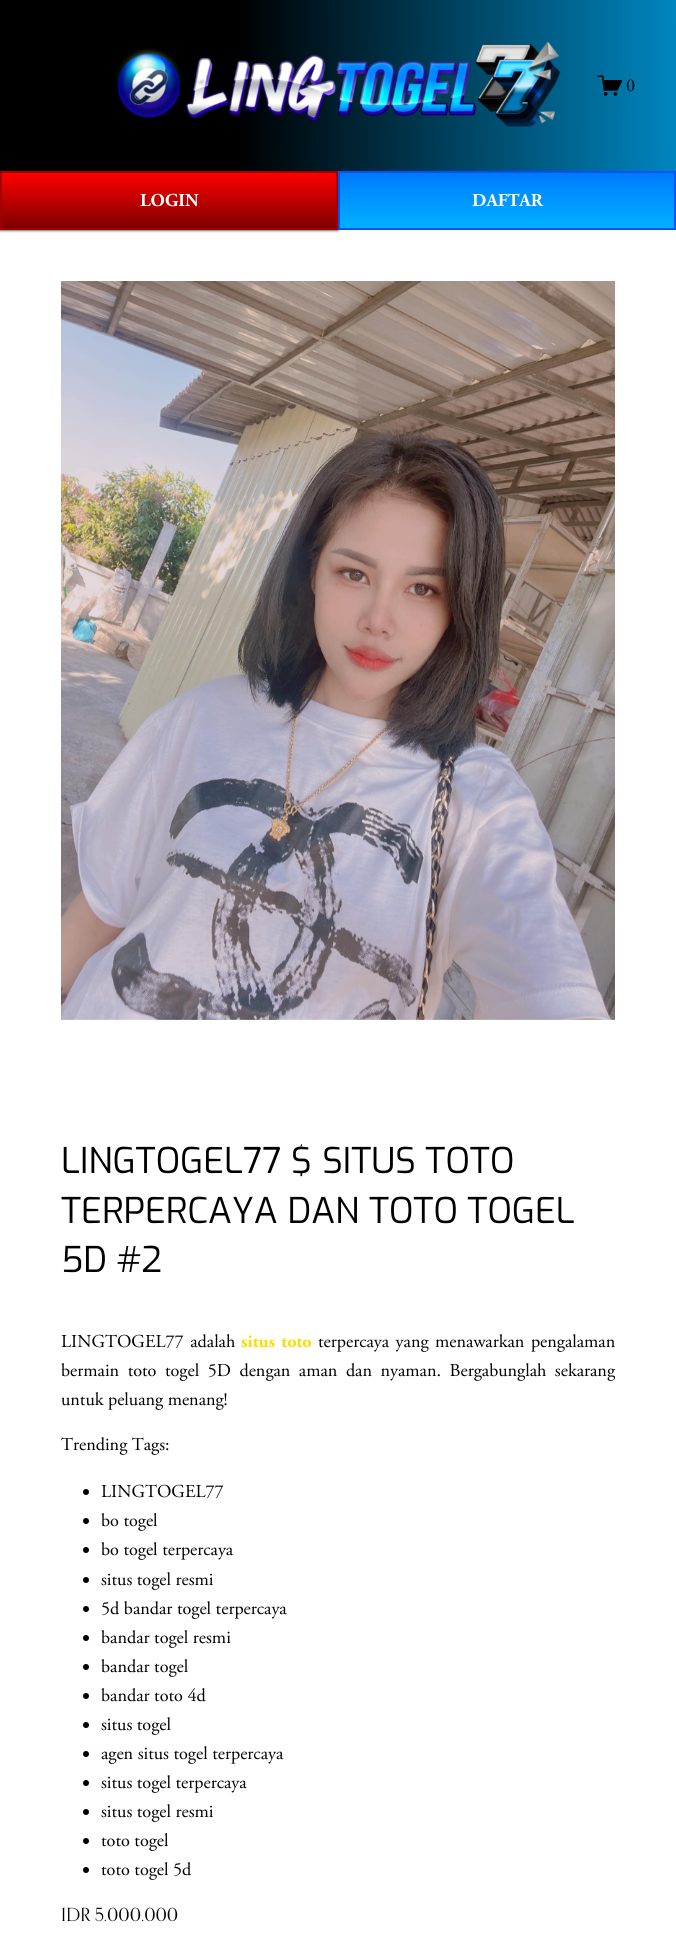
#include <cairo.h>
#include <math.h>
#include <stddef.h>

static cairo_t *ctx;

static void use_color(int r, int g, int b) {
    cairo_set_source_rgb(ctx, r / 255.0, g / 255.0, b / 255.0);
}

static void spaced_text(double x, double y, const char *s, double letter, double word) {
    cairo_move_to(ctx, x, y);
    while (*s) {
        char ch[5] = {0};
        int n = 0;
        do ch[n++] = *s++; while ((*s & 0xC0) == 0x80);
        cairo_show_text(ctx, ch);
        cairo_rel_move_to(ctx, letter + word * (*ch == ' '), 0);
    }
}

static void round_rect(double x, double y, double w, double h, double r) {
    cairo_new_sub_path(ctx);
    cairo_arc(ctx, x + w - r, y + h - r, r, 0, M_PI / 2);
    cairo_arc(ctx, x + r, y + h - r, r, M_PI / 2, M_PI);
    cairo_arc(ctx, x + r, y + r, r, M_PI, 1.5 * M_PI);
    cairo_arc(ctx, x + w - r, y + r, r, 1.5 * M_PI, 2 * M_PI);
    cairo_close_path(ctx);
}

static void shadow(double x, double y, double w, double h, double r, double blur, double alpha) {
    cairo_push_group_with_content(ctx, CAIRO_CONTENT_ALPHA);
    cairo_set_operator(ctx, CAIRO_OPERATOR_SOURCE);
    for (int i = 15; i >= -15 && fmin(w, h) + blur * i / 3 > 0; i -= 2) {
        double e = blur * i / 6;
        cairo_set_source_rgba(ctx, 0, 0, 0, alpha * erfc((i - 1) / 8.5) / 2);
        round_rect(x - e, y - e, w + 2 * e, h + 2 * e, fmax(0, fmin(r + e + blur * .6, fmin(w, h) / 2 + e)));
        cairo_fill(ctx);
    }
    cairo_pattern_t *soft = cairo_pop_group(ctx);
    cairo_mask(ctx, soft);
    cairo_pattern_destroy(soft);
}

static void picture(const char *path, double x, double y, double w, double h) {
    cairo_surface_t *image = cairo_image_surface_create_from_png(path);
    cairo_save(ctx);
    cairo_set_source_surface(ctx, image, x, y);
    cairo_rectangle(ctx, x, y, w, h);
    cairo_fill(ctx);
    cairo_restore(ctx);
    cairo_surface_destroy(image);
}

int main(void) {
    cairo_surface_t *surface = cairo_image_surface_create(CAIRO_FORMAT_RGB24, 676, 1951);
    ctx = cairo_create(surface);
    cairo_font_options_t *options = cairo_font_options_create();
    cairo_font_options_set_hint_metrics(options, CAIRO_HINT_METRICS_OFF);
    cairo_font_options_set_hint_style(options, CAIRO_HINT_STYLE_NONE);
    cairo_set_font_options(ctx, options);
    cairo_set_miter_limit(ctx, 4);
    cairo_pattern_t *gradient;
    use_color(255, 255, 255);
    cairo_paint(ctx);
    use_color(0, 0, 0);
    shadow(0, 171, 338, 59, 0, 1.5, 1);
    gradient = cairo_pattern_create_linear(-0.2, 86, 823, 84);
    cairo_pattern_add_color_stop_rgba(gradient, 0.29, 0, 0, 0, 1);
    cairo_pattern_add_color_stop_rgba(gradient, 1, 0, 0.698, 1, 1);
    cairo_set_source(ctx, gradient);
    cairo_pattern_destroy(gradient);
    cairo_rectangle(ctx, 0, 0, 676, 171);
    cairo_fill(ctx);
    picture("img1.png", 116, 41, 445, 86);
    picture("img2.png", 597, 75, 25, 21);
    cairo_select_font_face(ctx, "Adobe Garamond", CAIRO_FONT_SLANT_NORMAL, CAIRO_FONT_WEIGHT_NORMAL);
    cairo_set_font_size(ctx, 18.15);
    use_color(0, 0, 0);
    cairo_move_to(ctx, 626, 91);
    cairo_show_text(ctx, "0");
    gradient = cairo_pattern_create_linear(169, 173, 169, 228);
    cairo_pattern_add_color_stop_rgba(gradient, 0, 1, 0, 0, 1);
    cairo_pattern_add_color_stop_rgba(gradient, 1, 0.49, 0, 0, 1);
    cairo_set_source(ctx, gradient);
    cairo_pattern_destroy(gradient);
    cairo_rectangle(ctx, 2, 173, 334, 55);
    cairo_fill(ctx);
    cairo_rectangle(ctx, 1, 172, 336, 57);
    use_color(161, 0, 0);
    cairo_stroke(ctx);
    cairo_select_font_face(ctx, "Adobe Garamond", CAIRO_FONT_SLANT_NORMAL, CAIRO_FONT_WEIGHT_BOLD);
    use_color(255, 255, 255);
    cairo_move_to(ctx, 140, 206);
    cairo_show_text(ctx, "LOGIN");
    gradient = cairo_pattern_create_linear(507, 173, 507, 228);
    cairo_pattern_add_color_stop_rgba(gradient, 0, 0, 0.478, 1, 1);
    cairo_pattern_add_color_stop_rgba(gradient, 1, 0, 0.698, 1, 1);
    cairo_set_source(ctx, gradient);
    cairo_pattern_destroy(gradient);
    cairo_rectangle(ctx, 340, 173, 334, 55);
    cairo_fill(ctx);
    cairo_rectangle(ctx, 339, 172, 336, 57);
    use_color(0, 81, 255);
    cairo_stroke(ctx);
    use_color(255, 255, 255);
    cairo_move_to(ctx, 472, 206);
    cairo_show_text(ctx, "DAFTAR");
    picture("img3.png", 61, 281, 554, 739);
    cairo_select_font_face(ctx, "Exo", CAIRO_FONT_SLANT_NORMAL, CAIRO_FONT_WEIGHT_NORMAL);
    cairo_set_font_size(ctx, 35.5);
    use_color(0, 0, 0);
    cairo_move_to(ctx, 61, 1173);
    cairo_show_text(ctx, "LINGTOGEL77 $ SITUS TOTO");
    cairo_move_to(ctx, 61, 1223);
    cairo_show_text(ctx, "TERPERCAYA DAN TOTO TOGEL");
    cairo_move_to(ctx, 61, 1272);
    cairo_show_text(ctx, "5D #2");
    cairo_select_font_face(ctx, "Adobe Garamond", CAIRO_FONT_SLANT_NORMAL, CAIRO_FONT_WEIGHT_NORMAL);
    cairo_set_font_size(ctx, 18.15);
    spaced_text(61, 1347, "LINGTOGEL77 adalah", 0, 2);
    cairo_select_font_face(ctx, "Adobe Garamond", CAIRO_FONT_SLANT_NORMAL, CAIRO_FONT_WEIGHT_BOLD);
    use_color(253, 220, 0);
    spaced_text(241, 1347, "situs toto", 0, 2);
    cairo_select_font_face(ctx, "Adobe Garamond", CAIRO_FONT_SLANT_NORMAL, CAIRO_FONT_WEIGHT_NORMAL);
    use_color(0, 0, 0);
    spaced_text(318, 1347, "terpercaya yang menawarkan pengalaman", 0, 2);
    spaced_text(61, 1376, "bermain toto togel 5D dengan aman dan nyaman. Bergabunglah sekarang", 0, 4);
    cairo_move_to(ctx, 61, 1405);
    cairo_show_text(ctx, "untuk peluang menang!");
    cairo_move_to(ctx, 61, 1450);
    cairo_show_text(ctx, "Trending Tags:");
    cairo_new_path(ctx);
    cairo_arc(ctx, 86, 1492, 3, 0, 2 * M_PI);
    cairo_fill(ctx);
    cairo_move_to(ctx, 101, 1497);
    cairo_show_text(ctx, "LINGTOGEL77");
    cairo_new_path(ctx);
    cairo_arc(ctx, 86, 1521, 3, 0, 2 * M_PI);
    cairo_fill(ctx);
    cairo_move_to(ctx, 101, 1526);
    cairo_show_text(ctx, "bo togel");
    cairo_new_path(ctx);
    cairo_arc(ctx, 86, 1550, 3, 0, 2 * M_PI);
    cairo_fill(ctx);
    cairo_move_to(ctx, 101, 1555);
    cairo_show_text(ctx, "bo togel terpercaya");
    cairo_new_path(ctx);
    cairo_arc(ctx, 86, 1580, 3, 0, 2 * M_PI);
    cairo_fill(ctx);
    cairo_move_to(ctx, 101, 1585);
    cairo_show_text(ctx, "situs togel resmi");
    cairo_new_path(ctx);
    cairo_arc(ctx, 86, 1609, 3, 0, 2 * M_PI);
    cairo_fill(ctx);
    cairo_move_to(ctx, 101, 1614);
    cairo_show_text(ctx, "5d bandar togel terpercaya");
    cairo_new_path(ctx);
    cairo_arc(ctx, 86, 1638, 3, 0, 2 * M_PI);
    cairo_fill(ctx);
    cairo_move_to(ctx, 101, 1643);
    cairo_show_text(ctx, "bandar togel resmi");
    cairo_new_path(ctx);
    cairo_arc(ctx, 86, 1667, 3, 0, 2 * M_PI);
    cairo_fill(ctx);
    cairo_move_to(ctx, 101, 1672);
    cairo_show_text(ctx, "bandar togel");
    cairo_new_path(ctx);
    cairo_arc(ctx, 86, 1696, 3, 0, 2 * M_PI);
    cairo_fill(ctx);
    cairo_move_to(ctx, 101, 1701);
    cairo_show_text(ctx, "bandar toto 4d");
    cairo_new_path(ctx);
    cairo_arc(ctx, 86, 1725, 3, 0, 2 * M_PI);
    cairo_fill(ctx);
    cairo_move_to(ctx, 101, 1730);
    cairo_show_text(ctx, "situs togel");
    cairo_new_path(ctx);
    cairo_arc(ctx, 86, 1754, 3, 0, 2 * M_PI);
    cairo_fill(ctx);
    cairo_move_to(ctx, 101, 1759);
    cairo_show_text(ctx, "agen situs togel terpercaya");
    cairo_new_path(ctx);
    cairo_arc(ctx, 86, 1783, 3, 0, 2 * M_PI);
    cairo_fill(ctx);
    cairo_move_to(ctx, 101, 1788);
    cairo_show_text(ctx, "situs togel terpercaya");
    cairo_new_path(ctx);
    cairo_arc(ctx, 86, 1812, 3, 0, 2 * M_PI);
    cairo_fill(ctx);
    cairo_move_to(ctx, 101, 1817);
    cairo_show_text(ctx, "situs togel resmi");
    cairo_new_path(ctx);
    cairo_arc(ctx, 86, 1841, 3, 0, 2 * M_PI);
    cairo_fill(ctx);
    cairo_move_to(ctx, 101, 1846);
    cairo_show_text(ctx, "toto togel");
    cairo_new_path(ctx);
    cairo_arc(ctx, 86, 1870, 3, 0, 2 * M_PI);
    cairo_fill(ctx);
    cairo_move_to(ctx, 101, 1875);
    cairo_show_text(ctx, "toto togel 5d");
    cairo_select_font_face(ctx, "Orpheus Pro", CAIRO_FONT_SLANT_NORMAL, CAIRO_FONT_WEIGHT_NORMAL);
    cairo_move_to(ctx, 61, 1921);
    cairo_show_text(ctx, "IDR 5.000.000");
    cairo_surface_write_to_png(surface, "result.png");
    cairo_font_options_destroy(options);
    cairo_destroy(ctx);
    cairo_surface_destroy(surface);
    return 0;
}
